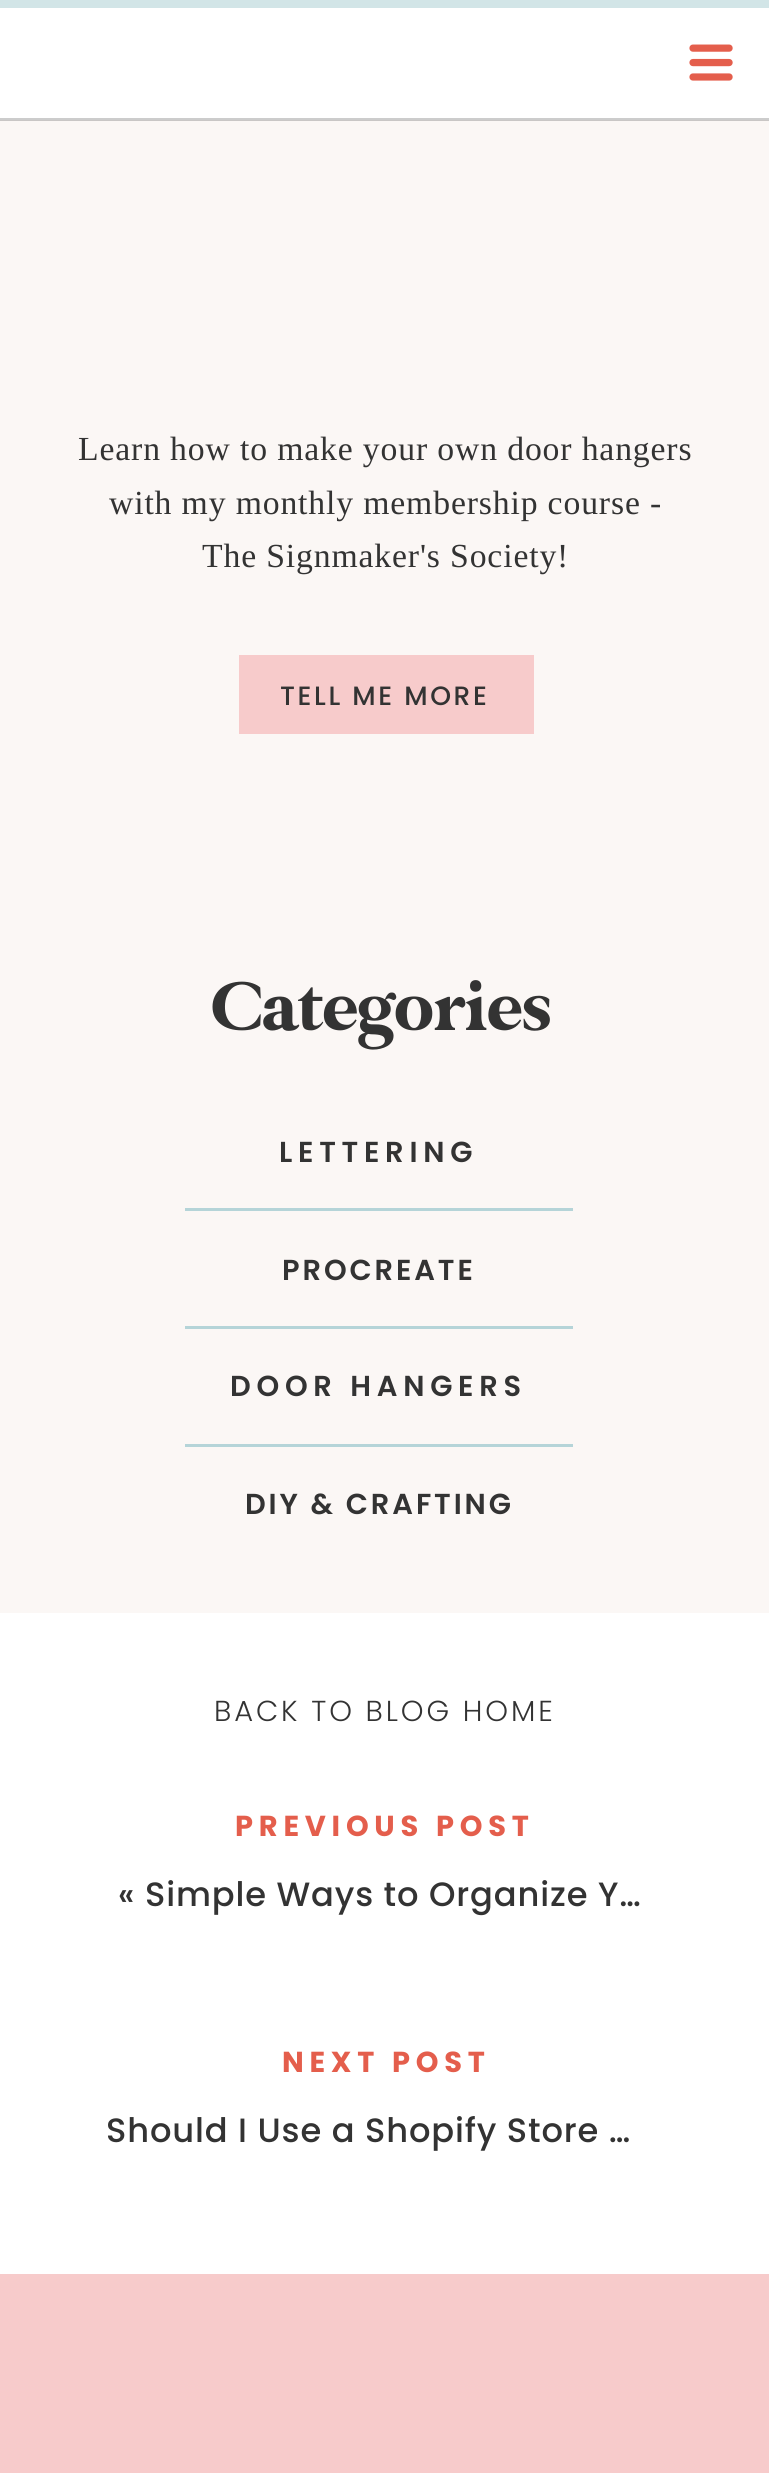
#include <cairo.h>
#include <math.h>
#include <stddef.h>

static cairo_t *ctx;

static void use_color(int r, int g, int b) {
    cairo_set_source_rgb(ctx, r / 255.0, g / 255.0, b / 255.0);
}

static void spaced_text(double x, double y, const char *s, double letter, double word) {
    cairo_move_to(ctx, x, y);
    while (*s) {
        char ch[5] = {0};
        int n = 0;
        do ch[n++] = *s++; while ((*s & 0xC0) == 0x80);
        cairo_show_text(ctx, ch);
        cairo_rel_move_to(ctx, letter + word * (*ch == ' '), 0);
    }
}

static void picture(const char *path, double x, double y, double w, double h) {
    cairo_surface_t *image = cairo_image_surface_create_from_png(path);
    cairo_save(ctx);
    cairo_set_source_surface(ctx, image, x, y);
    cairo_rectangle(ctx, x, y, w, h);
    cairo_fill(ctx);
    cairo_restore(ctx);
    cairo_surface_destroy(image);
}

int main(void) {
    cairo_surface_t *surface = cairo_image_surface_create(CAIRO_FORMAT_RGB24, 769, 2473);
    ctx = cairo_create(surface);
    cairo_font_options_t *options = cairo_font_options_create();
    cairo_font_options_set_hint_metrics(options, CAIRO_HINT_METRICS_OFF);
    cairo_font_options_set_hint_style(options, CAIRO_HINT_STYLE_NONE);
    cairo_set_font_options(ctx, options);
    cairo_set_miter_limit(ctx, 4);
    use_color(255, 255, 255);
    cairo_paint(ctx);
    use_color(204, 204, 204);
    cairo_rectangle(ctx, 0, 118, 769, 2);
    cairo_fill(ctx);
    use_color(210, 229, 231);
    cairo_rectangle(ctx, 0, 0, 769, 8);
    cairo_fill(ctx);
    picture("img1.png", 689, 44, 44, 37);
    use_color(251, 247, 245);
    cairo_rectangle(ctx, 0, 121, 769, 1492);
    cairo_fill(ctx);
    use_color(201, 198, 197);
    cairo_rectangle(ctx, 0, 120, 769, 1);
    cairo_fill(ctx);
    cairo_select_font_face(ctx, "Liberation Serif", CAIRO_FONT_SLANT_NORMAL, CAIRO_FONT_WEIGHT_NORMAL);
    cairo_set_font_size(ctx, 33.7);
    use_color(51, 51, 51);
    spaced_text(78, 460, "Learn how to make your own door hangers", 0.85, 0);
    spaced_text(109, 514, "with my monthly membership course -", 0.85, 0);
    spaced_text(202, 567, "The Signmaker's Society!", 0.85, 0);
    use_color(247, 203, 203);
    cairo_rectangle(ctx, 239, 655, 295, 79);
    cairo_fill(ctx);
    cairo_select_font_face(ctx, "Poppins Medium", CAIRO_FONT_SLANT_NORMAL, CAIRO_FONT_WEIGHT_NORMAL);
    cairo_set_font_size(ctx, 26.5);
    use_color(51, 51, 51);
    spaced_text(280, 705, "TELL ME MORE", 2.6, 0);
    cairo_select_font_face(ctx, "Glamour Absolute", CAIRO_FONT_SLANT_NORMAL, CAIRO_FONT_WEIGHT_NORMAL);
    cairo_set_font_size(ctx, 74.5);
    cairo_move_to(ctx, 212, 1030);
    cairo_show_text(ctx, "Categories");
    cairo_select_font_face(ctx, "Poppins SemiBold", CAIRO_FONT_SLANT_NORMAL, CAIRO_FONT_WEIGHT_NORMAL);
    cairo_set_font_size(ctx, 28.9);
    spaced_text(279, 1162, "LETTERING", 5.75, 0);
    use_color(181, 212, 216);
    cairo_rectangle(ctx, 185, 1208, 388, 3);
    cairo_fill(ctx);
    use_color(51, 51, 51);
    spaced_text(282, 1280, "PROCREATE", 2.9, 0);
    use_color(181, 212, 216);
    cairo_rectangle(ctx, 185, 1326, 388, 3);
    cairo_fill(ctx);
    use_color(51, 51, 51);
    spaced_text(230, 1396, "DOOR HANGERS", 5.75, 0);
    use_color(181, 212, 216);
    cairo_rectangle(ctx, 185, 1444, 388, 3);
    cairo_fill(ctx);
    use_color(51, 51, 51);
    spaced_text(245, 1514, "DIY & CRAFTING", 2.9, 0);
    cairo_select_font_face(ctx, "Poppins Light", CAIRO_FONT_SLANT_NORMAL, CAIRO_FONT_WEIGHT_NORMAL);
    spaced_text(214, 1721, "BACK TO BLOG HOME", 2.9, 0);
    cairo_select_font_face(ctx, "Poppins", CAIRO_FONT_SLANT_NORMAL, CAIRO_FONT_WEIGHT_BOLD);
    use_color(228, 94, 76);
    spaced_text(235, 1836, "PREVIOUS POST", 5.75, 0);
    cairo_select_font_face(ctx, "Poppins Medium", CAIRO_FONT_SLANT_NORMAL, CAIRO_FONT_WEIGHT_NORMAL);
    cairo_set_font_size(ctx, 33.7);
    use_color(51, 51, 51);
    spaced_text(118, 1906, "« Simple Ways to Organize Y…", 0.85, 0);
    cairo_select_font_face(ctx, "Poppins", CAIRO_FONT_SLANT_NORMAL, CAIRO_FONT_WEIGHT_BOLD);
    cairo_set_font_size(ctx, 28.9);
    use_color(228, 94, 76);
    spaced_text(282, 2072, "NEXT POST", 5.75, 0);
    cairo_select_font_face(ctx, "Poppins Medium", CAIRO_FONT_SLANT_NORMAL, CAIRO_FONT_WEIGHT_NORMAL);
    cairo_set_font_size(ctx, 33.7);
    use_color(51, 51, 51);
    spaced_text(106, 2142, "Should I Use a Shopify Store …", 0.85, 0);
    use_color(247, 203, 203);
    cairo_rectangle(ctx, 0, 2274, 769, 199);
    cairo_fill(ctx);
    cairo_surface_write_to_png(surface, "result.png");
    cairo_font_options_destroy(options);
    cairo_destroy(ctx);
    cairo_surface_destroy(surface);
    return 0;
}
